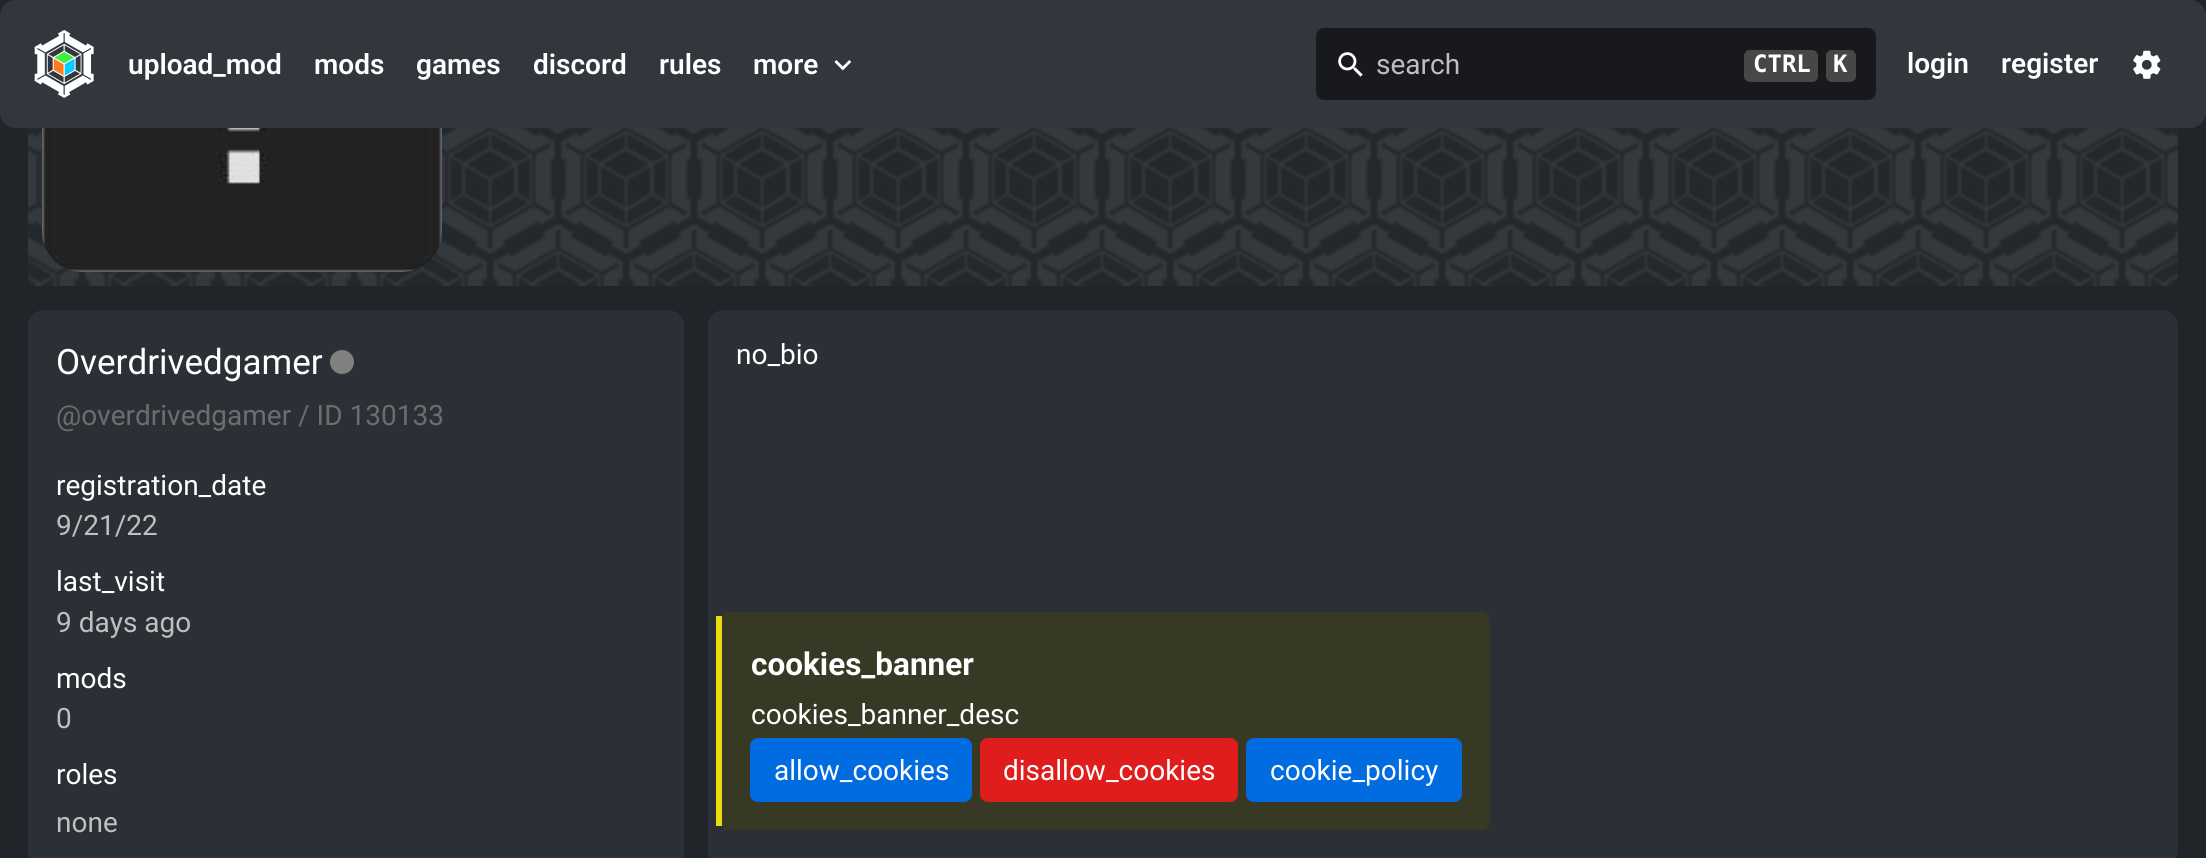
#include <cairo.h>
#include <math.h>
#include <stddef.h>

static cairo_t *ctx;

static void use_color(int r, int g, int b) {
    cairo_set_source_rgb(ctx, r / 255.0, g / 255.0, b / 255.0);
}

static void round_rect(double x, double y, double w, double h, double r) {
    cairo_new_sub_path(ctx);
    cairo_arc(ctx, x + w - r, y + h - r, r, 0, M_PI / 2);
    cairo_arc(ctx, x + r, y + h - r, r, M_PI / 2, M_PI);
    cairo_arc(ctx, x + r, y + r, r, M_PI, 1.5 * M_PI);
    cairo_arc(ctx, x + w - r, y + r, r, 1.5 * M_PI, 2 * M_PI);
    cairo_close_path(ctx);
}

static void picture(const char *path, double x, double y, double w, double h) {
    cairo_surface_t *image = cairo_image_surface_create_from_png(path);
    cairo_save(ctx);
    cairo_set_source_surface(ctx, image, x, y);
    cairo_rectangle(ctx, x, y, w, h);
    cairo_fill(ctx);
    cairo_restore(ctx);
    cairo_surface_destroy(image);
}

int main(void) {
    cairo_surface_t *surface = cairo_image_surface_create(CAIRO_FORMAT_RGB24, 2206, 858);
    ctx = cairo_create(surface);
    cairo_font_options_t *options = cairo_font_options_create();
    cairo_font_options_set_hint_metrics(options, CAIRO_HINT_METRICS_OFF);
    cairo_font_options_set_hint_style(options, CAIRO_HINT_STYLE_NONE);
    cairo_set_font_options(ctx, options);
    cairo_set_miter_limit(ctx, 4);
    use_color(33, 37, 41);
    cairo_paint(ctx);
    use_color(50, 55, 62);
    round_rect(0, 0, 2206, 128, 16);
    cairo_fill(ctx);
    picture("img1.png", 34, 30, 60, 68);
    cairo_select_font_face(ctx, "Roboto SemiBold", CAIRO_FONT_SLANT_NORMAL, CAIRO_FONT_WEIGHT_NORMAL);
    cairo_set_font_size(ctx, 28);
    use_color(255, 255, 255);
    cairo_move_to(ctx, 128, 74);
    cairo_show_text(ctx, "upload_mod");
    cairo_move_to(ctx, 314, 74);
    cairo_show_text(ctx, "mods");
    cairo_move_to(ctx, 416, 74);
    cairo_show_text(ctx, "games");
    cairo_move_to(ctx, 533, 74);
    cairo_show_text(ctx, "discord");
    cairo_move_to(ctx, 659, 74);
    cairo_show_text(ctx, "rules");
    cairo_move_to(ctx, 753, 74);
    cairo_show_text(ctx, "more");
    picture("img2.png", 834, 60, 18, 11);
    use_color(23, 25, 28);
    round_rect(1316, 28, 560, 72, 8);
    cairo_fill(ctx);
    picture("img3.png", 1338, 52, 25, 25);
    cairo_select_font_face(ctx, "Roboto", CAIRO_FONT_SLANT_NORMAL, CAIRO_FONT_WEIGHT_NORMAL);
    use_color(191, 191, 191);
    cairo_move_to(ctx, 1376, 74);
    cairo_show_text(ctx, "search");
    use_color(71, 71, 71);
    round_rect(1744, 50, 74, 32, 6);
    cairo_fill(ctx);
    cairo_select_font_face(ctx, "DejaVu Sans Mono", CAIRO_FONT_SLANT_NORMAL, CAIRO_FONT_WEIGHT_BOLD);
    cairo_set_font_size(ctx, 24);
    use_color(255, 255, 255);
    cairo_move_to(ctx, 1753, 72);
    cairo_show_text(ctx, "CTRL");
    use_color(71, 71, 71);
    round_rect(1826, 50, 30, 32, 6);
    cairo_fill(ctx);
    use_color(255, 255, 255);
    cairo_move_to(ctx, 1833, 72);
    cairo_show_text(ctx, "K");
    cairo_select_font_face(ctx, "Roboto SemiBold", CAIRO_FONT_SLANT_NORMAL, CAIRO_FONT_WEIGHT_NORMAL);
    cairo_set_font_size(ctx, 28);
    cairo_move_to(ctx, 1907, 73);
    cairo_show_text(ctx, "login");
    cairo_move_to(ctx, 2001, 73);
    cairo_show_text(ctx, "register");
    picture("img4.png", 2133, 50, 28, 29);
    picture("img5.png", 28, 128, 2150, 158);
    picture("img6.png", 42, 128, 400, 144);
    use_color(43, 48, 54);
    round_rect(28, 310, 656, 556, 16);
    cairo_fill(ctx);
    cairo_select_font_face(ctx, "Roboto", CAIRO_FONT_SLANT_NORMAL, CAIRO_FONT_WEIGHT_NORMAL);
    cairo_set_font_size(ctx, 35);
    use_color(255, 255, 255);
    cairo_move_to(ctx, 56, 374);
    cairo_show_text(ctx, "Overdrivedgamer");
    use_color(128, 128, 128);
    cairo_new_path(ctx);
    cairo_arc(ctx, 342, 362, 12, 0, 2 * M_PI);
    cairo_fill(ctx);
    cairo_set_font_size(ctx, 28);
    use_color(109, 109, 109);
    cairo_move_to(ctx, 56, 425);
    cairo_show_text(ctx, "@overdrivedgamer / ID 130133");
    use_color(255, 255, 255);
    cairo_move_to(ctx, 56, 495);
    cairo_show_text(ctx, "registration_date");
    use_color(191, 191, 191);
    cairo_move_to(ctx, 56, 535);
    cairo_show_text(ctx, "9/21/22");
    use_color(255, 255, 255);
    cairo_move_to(ctx, 56, 591);
    cairo_show_text(ctx, "last_visit");
    use_color(191, 191, 191);
    cairo_move_to(ctx, 56, 632);
    cairo_show_text(ctx, "9 days ago");
    use_color(255, 255, 255);
    cairo_move_to(ctx, 56, 688);
    cairo_show_text(ctx, "mods");
    use_color(191, 191, 191);
    cairo_move_to(ctx, 56, 728);
    cairo_show_text(ctx, "0");
    use_color(255, 255, 255);
    cairo_move_to(ctx, 56, 784);
    cairo_show_text(ctx, "roles");
    use_color(191, 191, 191);
    cairo_move_to(ctx, 56, 832);
    cairo_show_text(ctx, "none");
    use_color(43, 48, 54);
    round_rect(708, 310, 1470, 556, 16);
    cairo_fill(ctx);
    use_color(255, 255, 255);
    cairo_move_to(ctx, 736, 364);
    cairo_show_text(ctx, "no_bio");
    use_color(56, 57, 37);
    cairo_new_path(ctx);
    cairo_move_to(ctx, 724, 612);
    cairo_line_to(ctx, 1482, 612);
    cairo_curve_to(ctx, 1486, 612, 1490, 616, 1490, 620);
    cairo_line_to(ctx, 1490, 822);
    cairo_curve_to(ctx, 1490, 826, 1486, 830, 1482, 830);
    cairo_line_to(ctx, 724, 830);
    cairo_curve_to(ctx, 723, 830, 722, 826, 722, 822);
    cairo_line_to(ctx, 722, 620);
    cairo_curve_to(ctx, 722, 616, 723, 612, 724, 612);
    cairo_close_path(ctx);
    cairo_fill(ctx);
    use_color(236, 221, 15);
    cairo_rectangle(ctx, 716, 616, 6, 210);
    cairo_fill(ctx);
    cairo_select_font_face(ctx, "Roboto", CAIRO_FONT_SLANT_NORMAL, CAIRO_FONT_WEIGHT_BOLD);
    cairo_set_font_size(ctx, 31.5);
    use_color(255, 255, 255);
    cairo_move_to(ctx, 751, 675);
    cairo_show_text(ctx, "cookies_banner");
    cairo_select_font_face(ctx, "Roboto", CAIRO_FONT_SLANT_NORMAL, CAIRO_FONT_WEIGHT_NORMAL);
    cairo_set_font_size(ctx, 28);
    cairo_move_to(ctx, 751, 724);
    cairo_show_text(ctx, "cookies_banner_desc");
    use_color(0, 108, 224);
    round_rect(751, 739, 220, 62, 7);
    cairo_fill_preserve(ctx);
    cairo_stroke(ctx);
    use_color(255, 255, 255);
    cairo_move_to(ctx, 774, 780);
    cairo_show_text(ctx, "allow_cookies");
    use_color(223, 29, 29);
    round_rect(981, 739, 256, 62, 7);
    cairo_fill_preserve(ctx);
    cairo_stroke(ctx);
    use_color(255, 255, 255);
    cairo_move_to(ctx, 1003, 780);
    cairo_show_text(ctx, "disallow_cookies");
    use_color(0, 108, 224);
    round_rect(1247, 739, 214, 62, 7);
    cairo_fill_preserve(ctx);
    cairo_stroke(ctx);
    use_color(255, 255, 255);
    cairo_move_to(ctx, 1270, 780);
    cairo_show_text(ctx, "cookie_policy");
    cairo_surface_write_to_png(surface, "result.png");
    cairo_font_options_destroy(options);
    cairo_destroy(ctx);
    cairo_surface_destroy(surface);
    return 0;
}
